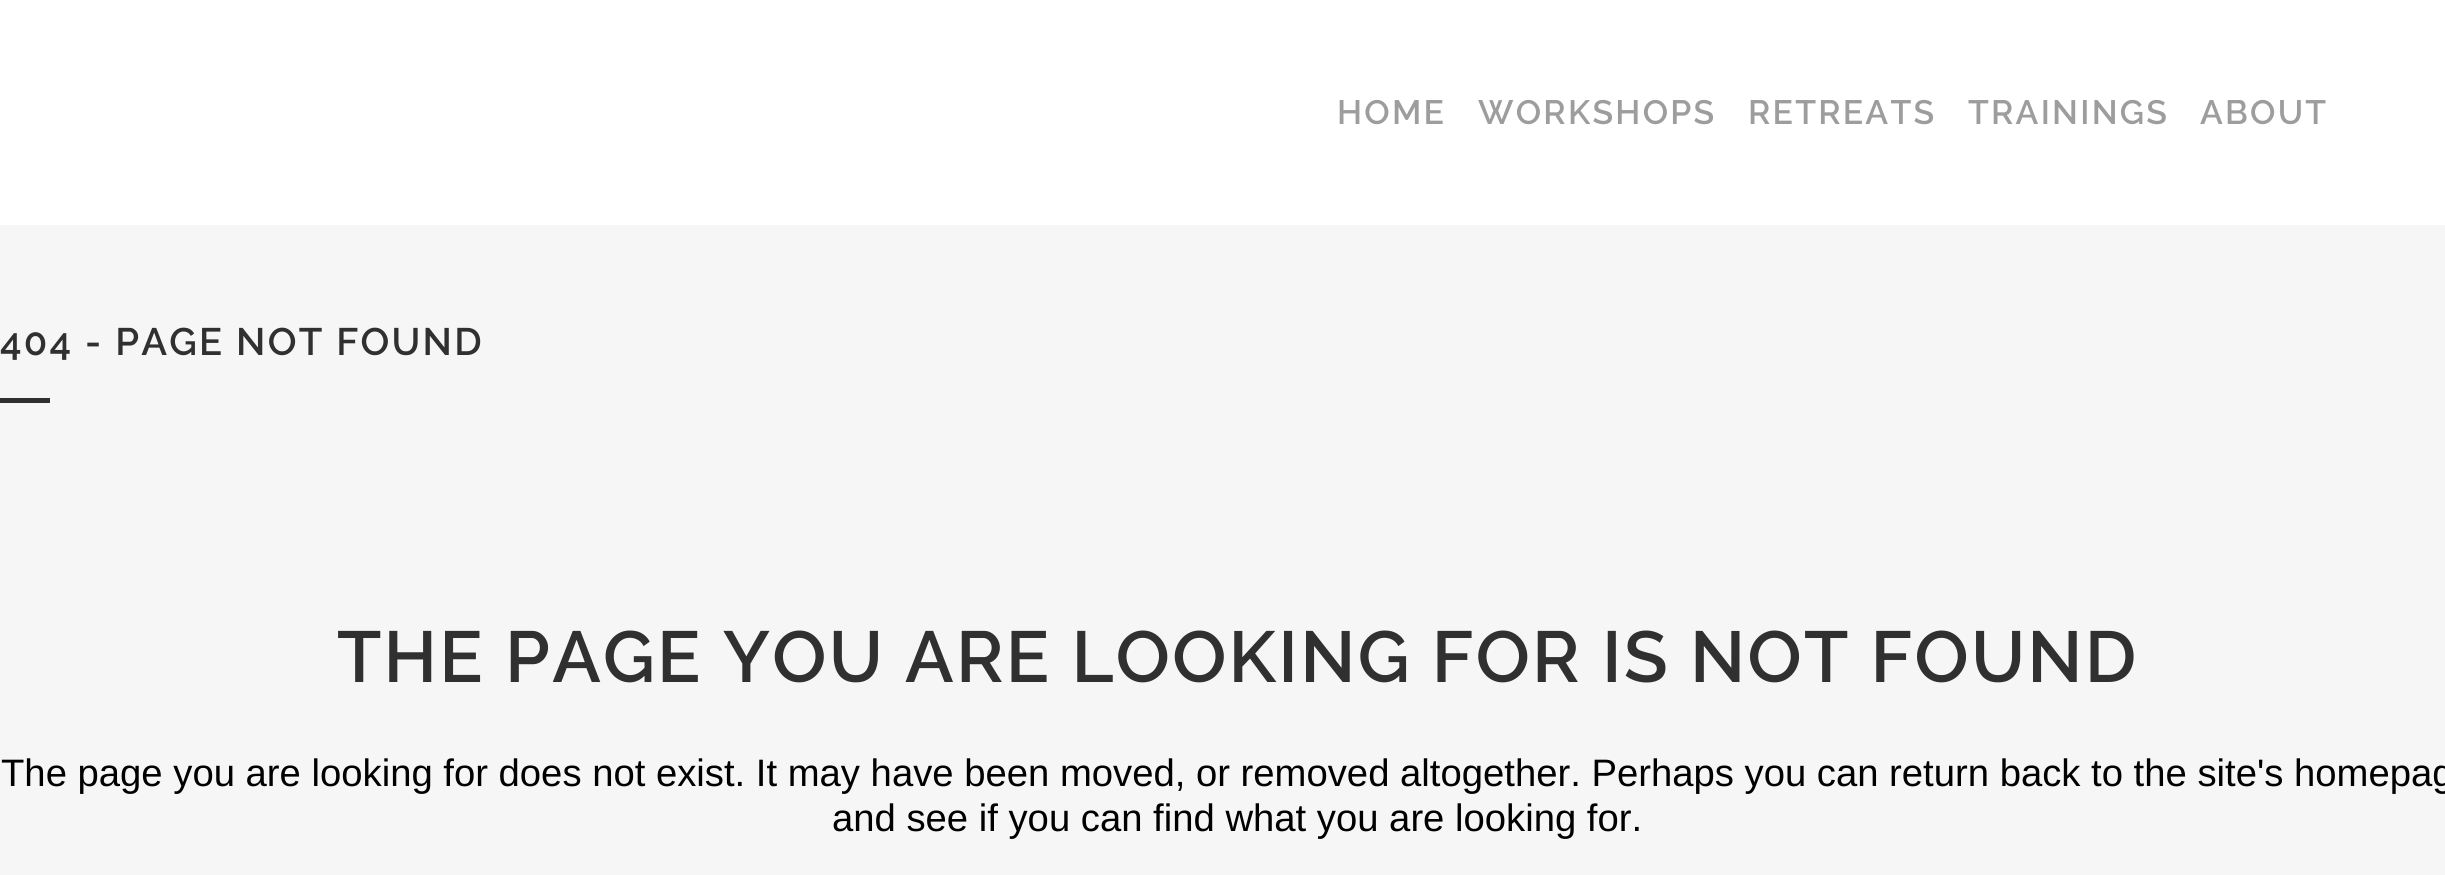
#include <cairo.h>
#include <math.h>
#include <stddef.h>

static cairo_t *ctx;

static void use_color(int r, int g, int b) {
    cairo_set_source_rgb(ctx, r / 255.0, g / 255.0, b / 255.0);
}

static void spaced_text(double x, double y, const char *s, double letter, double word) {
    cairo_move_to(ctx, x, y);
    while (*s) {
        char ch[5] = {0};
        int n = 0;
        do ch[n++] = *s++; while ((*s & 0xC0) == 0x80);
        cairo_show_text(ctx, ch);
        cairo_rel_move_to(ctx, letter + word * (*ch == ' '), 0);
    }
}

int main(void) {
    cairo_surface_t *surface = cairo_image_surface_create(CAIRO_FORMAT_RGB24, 2445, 875);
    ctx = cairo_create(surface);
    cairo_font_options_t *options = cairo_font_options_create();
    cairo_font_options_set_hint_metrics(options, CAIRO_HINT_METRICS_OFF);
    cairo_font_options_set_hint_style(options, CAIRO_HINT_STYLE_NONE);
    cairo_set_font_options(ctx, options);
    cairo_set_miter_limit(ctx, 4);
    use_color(246, 246, 246);
    cairo_paint(ctx);
    use_color(255, 255, 255);
    cairo_rectangle(ctx, 0, 0, 2445, 225);
    cairo_fill(ctx);
    cairo_select_font_face(ctx, "Raleway SemiBold", CAIRO_FONT_SLANT_NORMAL, CAIRO_FONT_WEIGHT_NORMAL);
    cairo_set_font_size(ctx, 33.75);
    use_color(157, 157, 157);
    spaced_text(1337, 124, "HOME", 2.25, 0);
    spaced_text(1478, 124, "WORKSHOPS", 2.25, 0);
    spaced_text(1748, 124, "RETREATS", 2.25, 0);
    spaced_text(1968, 124, "TRAININGS", 2.25, 0);
    spaced_text(2200, 124, "ABOUT", 2.25, 0);
    cairo_set_font_size(ctx, 38.25);
    use_color(48, 48, 48);
    spaced_text(0, 355, "404 - PAGE NOT FOUND", 2.25, 0);
    cairo_rectangle(ctx, 0, 398, 50, 5);
    cairo_fill(ctx);
    cairo_set_font_size(ctx, 72);
    spaced_text(337, 682, "THE PAGE YOU ARE LOOKING FOR IS NOT FOUND", 2.25, 0);
    cairo_select_font_face(ctx, "Liberation Sans", CAIRO_FONT_SLANT_NORMAL, CAIRO_FONT_WEIGHT_NORMAL);
    cairo_set_font_size(ctx, 38.25);
    use_color(0, 0, 0);
    cairo_move_to(ctx, 1, 786);
    cairo_show_text(ctx, "The page you are looking for does not exist. It may have been moved, or removed altogether. Perhaps you can return back to the site's homepag");
    cairo_move_to(ctx, 832, 831);
    cairo_show_text(ctx, "and see if you can find what you are looking for.");
    cairo_surface_write_to_png(surface, "result.png");
    cairo_font_options_destroy(options);
    cairo_destroy(ctx);
    cairo_surface_destroy(surface);
    return 0;
}
